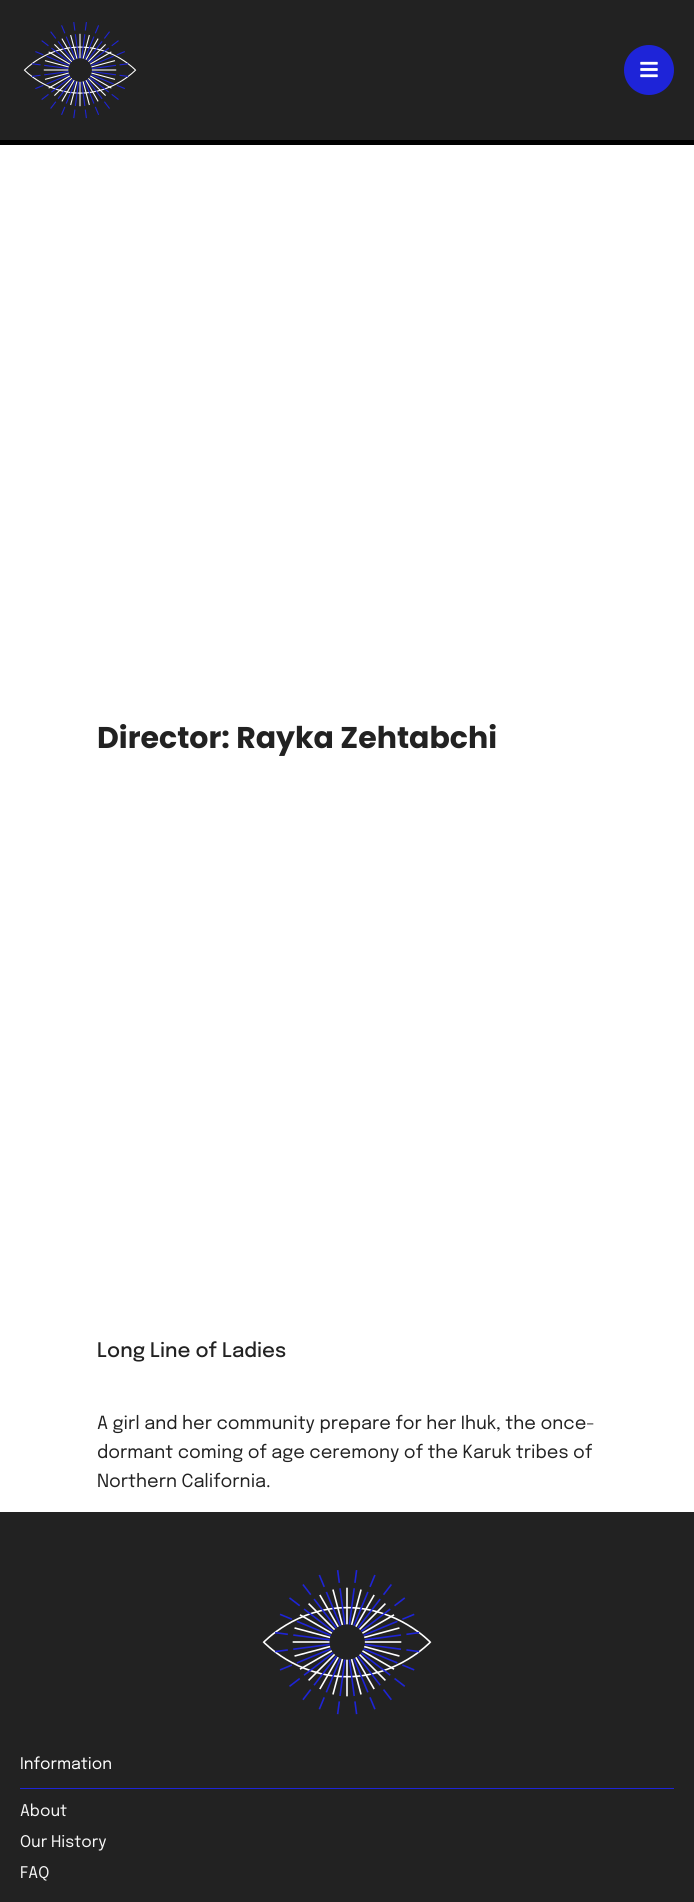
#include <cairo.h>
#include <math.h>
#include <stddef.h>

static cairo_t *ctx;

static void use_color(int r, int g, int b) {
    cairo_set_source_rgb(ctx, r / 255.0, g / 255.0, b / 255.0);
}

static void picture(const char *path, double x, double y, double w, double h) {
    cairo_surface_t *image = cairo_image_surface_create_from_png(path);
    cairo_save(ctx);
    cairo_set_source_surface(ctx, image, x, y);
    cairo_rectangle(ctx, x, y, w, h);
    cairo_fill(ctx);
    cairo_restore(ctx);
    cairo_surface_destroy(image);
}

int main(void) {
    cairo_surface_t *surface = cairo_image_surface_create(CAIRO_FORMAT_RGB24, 694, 1902);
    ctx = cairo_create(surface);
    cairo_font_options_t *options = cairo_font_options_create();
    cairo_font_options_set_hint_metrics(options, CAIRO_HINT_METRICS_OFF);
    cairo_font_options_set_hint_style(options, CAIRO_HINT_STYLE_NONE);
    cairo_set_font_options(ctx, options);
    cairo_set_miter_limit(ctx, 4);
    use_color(255, 255, 255);
    cairo_paint(ctx);
    use_color(34, 34, 34);
    cairo_rectangle(ctx, 0, 0, 694, 140);
    cairo_fill(ctx);
    use_color(0, 0, 0);
    cairo_rectangle(ctx, 0, 140, 694, 5);
    cairo_fill(ctx);
    picture("img1.png", 23, 22, 114, 97);
    use_color(30, 36, 216);
    cairo_arc(ctx, 649, 70, 25, 0, 2 * M_PI);
    cairo_fill(ctx);
    picture("img2.png", 640, 61, 18, 17);
    cairo_select_font_face(ctx, "Poppins", CAIRO_FONT_SLANT_NORMAL, CAIRO_FONT_WEIGHT_BOLD);
    cairo_set_font_size(ctx, 30);
    use_color(34, 34, 34);
    cairo_move_to(ctx, 97, 748);
    cairo_show_text(ctx, "Director: Rayka Zehtabchi");
    cairo_select_font_face(ctx, "Epilogue Medium", CAIRO_FONT_SLANT_NORMAL, CAIRO_FONT_WEIGHT_NORMAL);
    cairo_set_font_size(ctx, 20);
    cairo_move_to(ctx, 97, 1357);
    cairo_show_text(ctx, "Long Line of Ladies");
    cairo_select_font_face(ctx, "Epilogue", CAIRO_FONT_SLANT_NORMAL, CAIRO_FONT_WEIGHT_NORMAL);
    cairo_set_font_size(ctx, 18);
    cairo_move_to(ctx, 97, 1429);
    cairo_show_text(ctx, "A girl and her community prepare for her Ihuk, the once-");
    cairo_move_to(ctx, 97, 1458);
    cairo_show_text(ctx, "dormant coming of age ceremony of the Karuk tribes of");
    cairo_move_to(ctx, 97, 1487);
    cairo_show_text(ctx, "Northern California.");
    cairo_rectangle(ctx, 0, 1512, 694, 390);
    cairo_fill(ctx);
    picture("img3.png", 262, 1570, 170, 145);
    cairo_set_font_size(ctx, 16);
    use_color(254, 254, 254);
    cairo_move_to(ctx, 20, 1769);
    cairo_show_text(ctx, "Information");
    use_color(30, 36, 216);
    cairo_rectangle(ctx, 20, 1788, 654, 1);
    cairo_fill(ctx);
    use_color(247, 247, 247);
    cairo_move_to(ctx, 20, 1816);
    cairo_show_text(ctx, "About");
    cairo_move_to(ctx, 20, 1847);
    cairo_show_text(ctx, "Our History");
    cairo_move_to(ctx, 20, 1878);
    cairo_show_text(ctx, "FAQ");
    cairo_surface_write_to_png(surface, "result.png");
    cairo_font_options_destroy(options);
    cairo_destroy(ctx);
    cairo_surface_destroy(surface);
    return 0;
}
